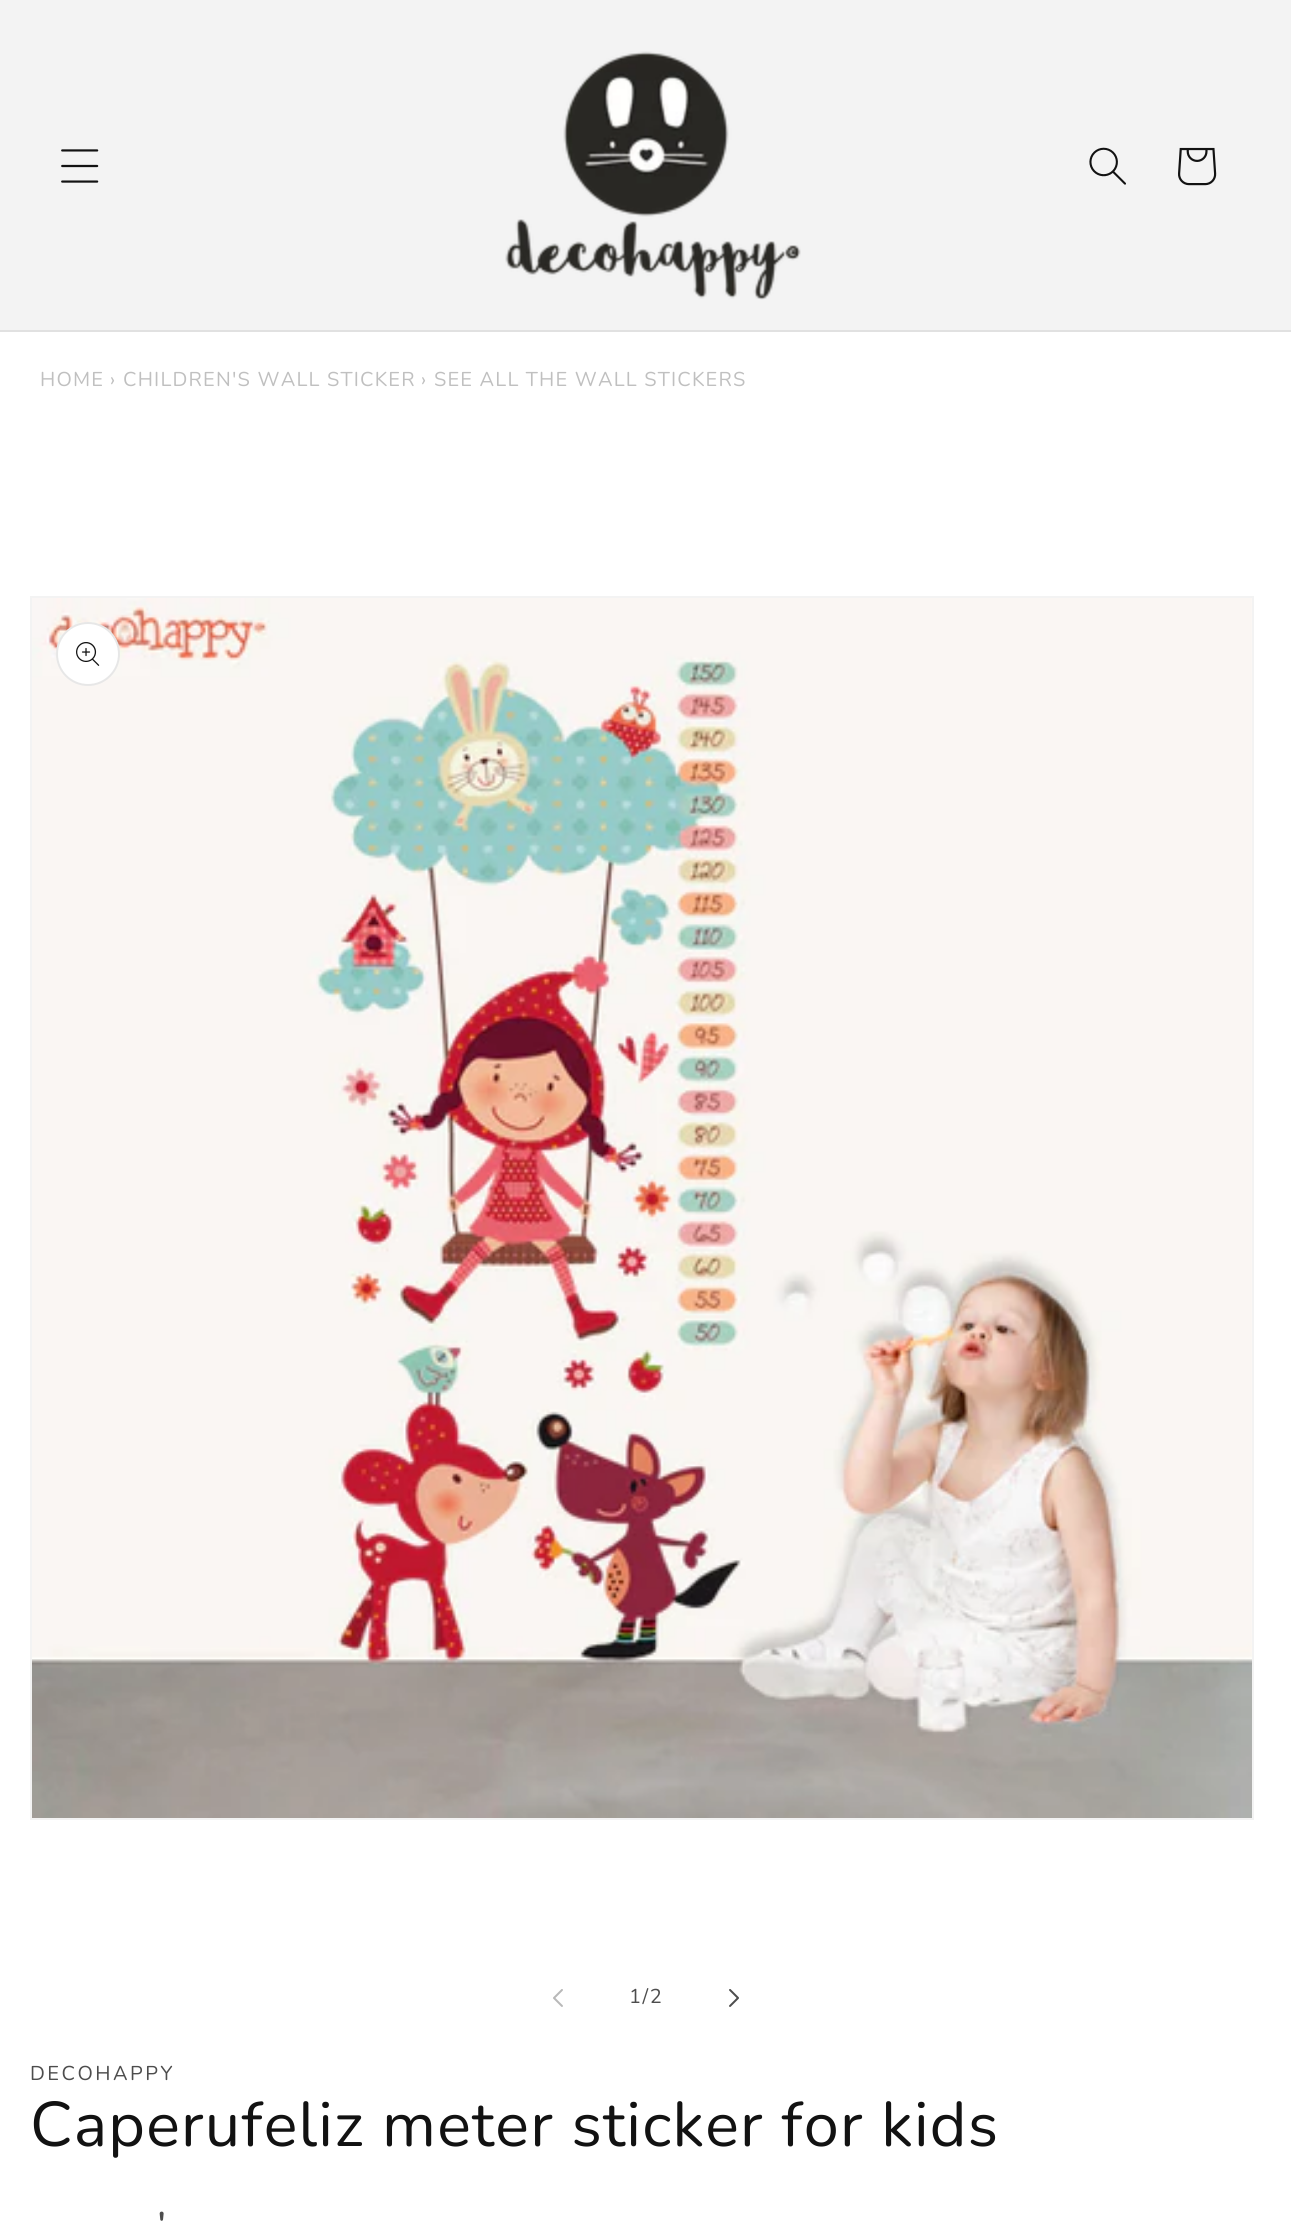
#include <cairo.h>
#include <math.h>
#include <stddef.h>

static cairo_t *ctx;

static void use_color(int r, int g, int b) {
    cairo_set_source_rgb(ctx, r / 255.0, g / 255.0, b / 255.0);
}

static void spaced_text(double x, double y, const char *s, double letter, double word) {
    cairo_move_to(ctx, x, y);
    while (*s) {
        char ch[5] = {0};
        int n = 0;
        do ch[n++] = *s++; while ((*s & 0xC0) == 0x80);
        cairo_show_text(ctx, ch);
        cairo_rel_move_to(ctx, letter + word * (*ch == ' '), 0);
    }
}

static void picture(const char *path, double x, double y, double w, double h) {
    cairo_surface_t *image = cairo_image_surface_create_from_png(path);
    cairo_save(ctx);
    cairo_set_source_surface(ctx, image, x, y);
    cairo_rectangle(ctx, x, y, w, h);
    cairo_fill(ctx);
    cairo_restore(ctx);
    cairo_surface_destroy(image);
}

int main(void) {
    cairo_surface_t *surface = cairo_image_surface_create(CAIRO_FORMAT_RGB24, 1291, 2227);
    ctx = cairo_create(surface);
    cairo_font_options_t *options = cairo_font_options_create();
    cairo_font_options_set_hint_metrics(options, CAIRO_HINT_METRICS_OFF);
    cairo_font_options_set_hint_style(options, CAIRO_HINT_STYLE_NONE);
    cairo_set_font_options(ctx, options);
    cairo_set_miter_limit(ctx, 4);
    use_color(255, 255, 255);
    cairo_paint(ctx);
    use_color(243, 243, 243);
    cairo_rectangle(ctx, 0, 0, 1291, 330);
    cairo_fill(ctx);
    use_color(225, 225, 225);
    cairo_rectangle(ctx, 0, 330, 1291, 2);
    cairo_fill(ctx);
    picture("img1.png", 61, 149, 38, 34);
    picture("img2.png", 505, 51, 296, 249);
    picture("img3.png", 1089, 147, 37, 38);
    picture("img4.png", 1178, 147, 39, 39);
    cairo_select_font_face(ctx, "Nunito", CAIRO_FONT_SLANT_NORMAL, CAIRO_FONT_WEIGHT_NORMAL);
    cairo_set_font_size(ctx, 20);
    use_color(192, 192, 192);
    spaced_text(40, 386, "HOME", 1.2, 0);
    spaced_text(110, 386, "›", 1.2, 0);
    spaced_text(123, 386, "CHILDREN'S WALL STICKER", 1.2, 0);
    spaced_text(421, 386, "›", 1.2, 0);
    spaced_text(434, 386, "SEE ALL THE WALL STICKERS", 1.2, 0);
    cairo_rectangle(ctx, 31, 597, 1222, 1222);
    use_color(243, 243, 243);
    cairo_stroke(ctx);
    picture("img5.png", 32, 598, 1220, 1220);
    use_color(255, 255, 255);
    cairo_arc(ctx, 88, 654, 32, 0, 2 * M_PI);
    cairo_fill(ctx);
    cairo_arc(ctx, 88, 654, 31, 0, 2 * M_PI);
    cairo_set_source_rgba(ctx, 0.071, 0.071, 0.071, 0.1);
    cairo_stroke(ctx);
    picture("img6.png", 76, 642, 24, 24);
    picture("img7.png", 553, 1989, 10, 18);
    use_color(77, 77, 77);
    spaced_text(629, 2003, "1/2", 1.5, 0);
    picture("img8.png", 729, 1989, 10, 18);
    spaced_text(30, 2080, "DECOHAPPY", 2.5, 0);
    cairo_set_font_size(ctx, 63);
    use_color(18, 18, 18);
    spaced_text(30, 2146, "Caperufeliz meter sticker for kids", 1.25, 0);
    cairo_select_font_face(ctx, "Nunito", CAIRO_FONT_SLANT_NORMAL, CAIRO_FONT_WEIGHT_BOLD);
    cairo_set_font_size(ctx, 30);
    use_color(77, 77, 77);
    spaced_text(158, 2233, "'", 1.2, 0);
    cairo_surface_write_to_png(surface, "result.png");
    cairo_font_options_destroy(options);
    cairo_destroy(ctx);
    cairo_surface_destroy(surface);
    return 0;
}
